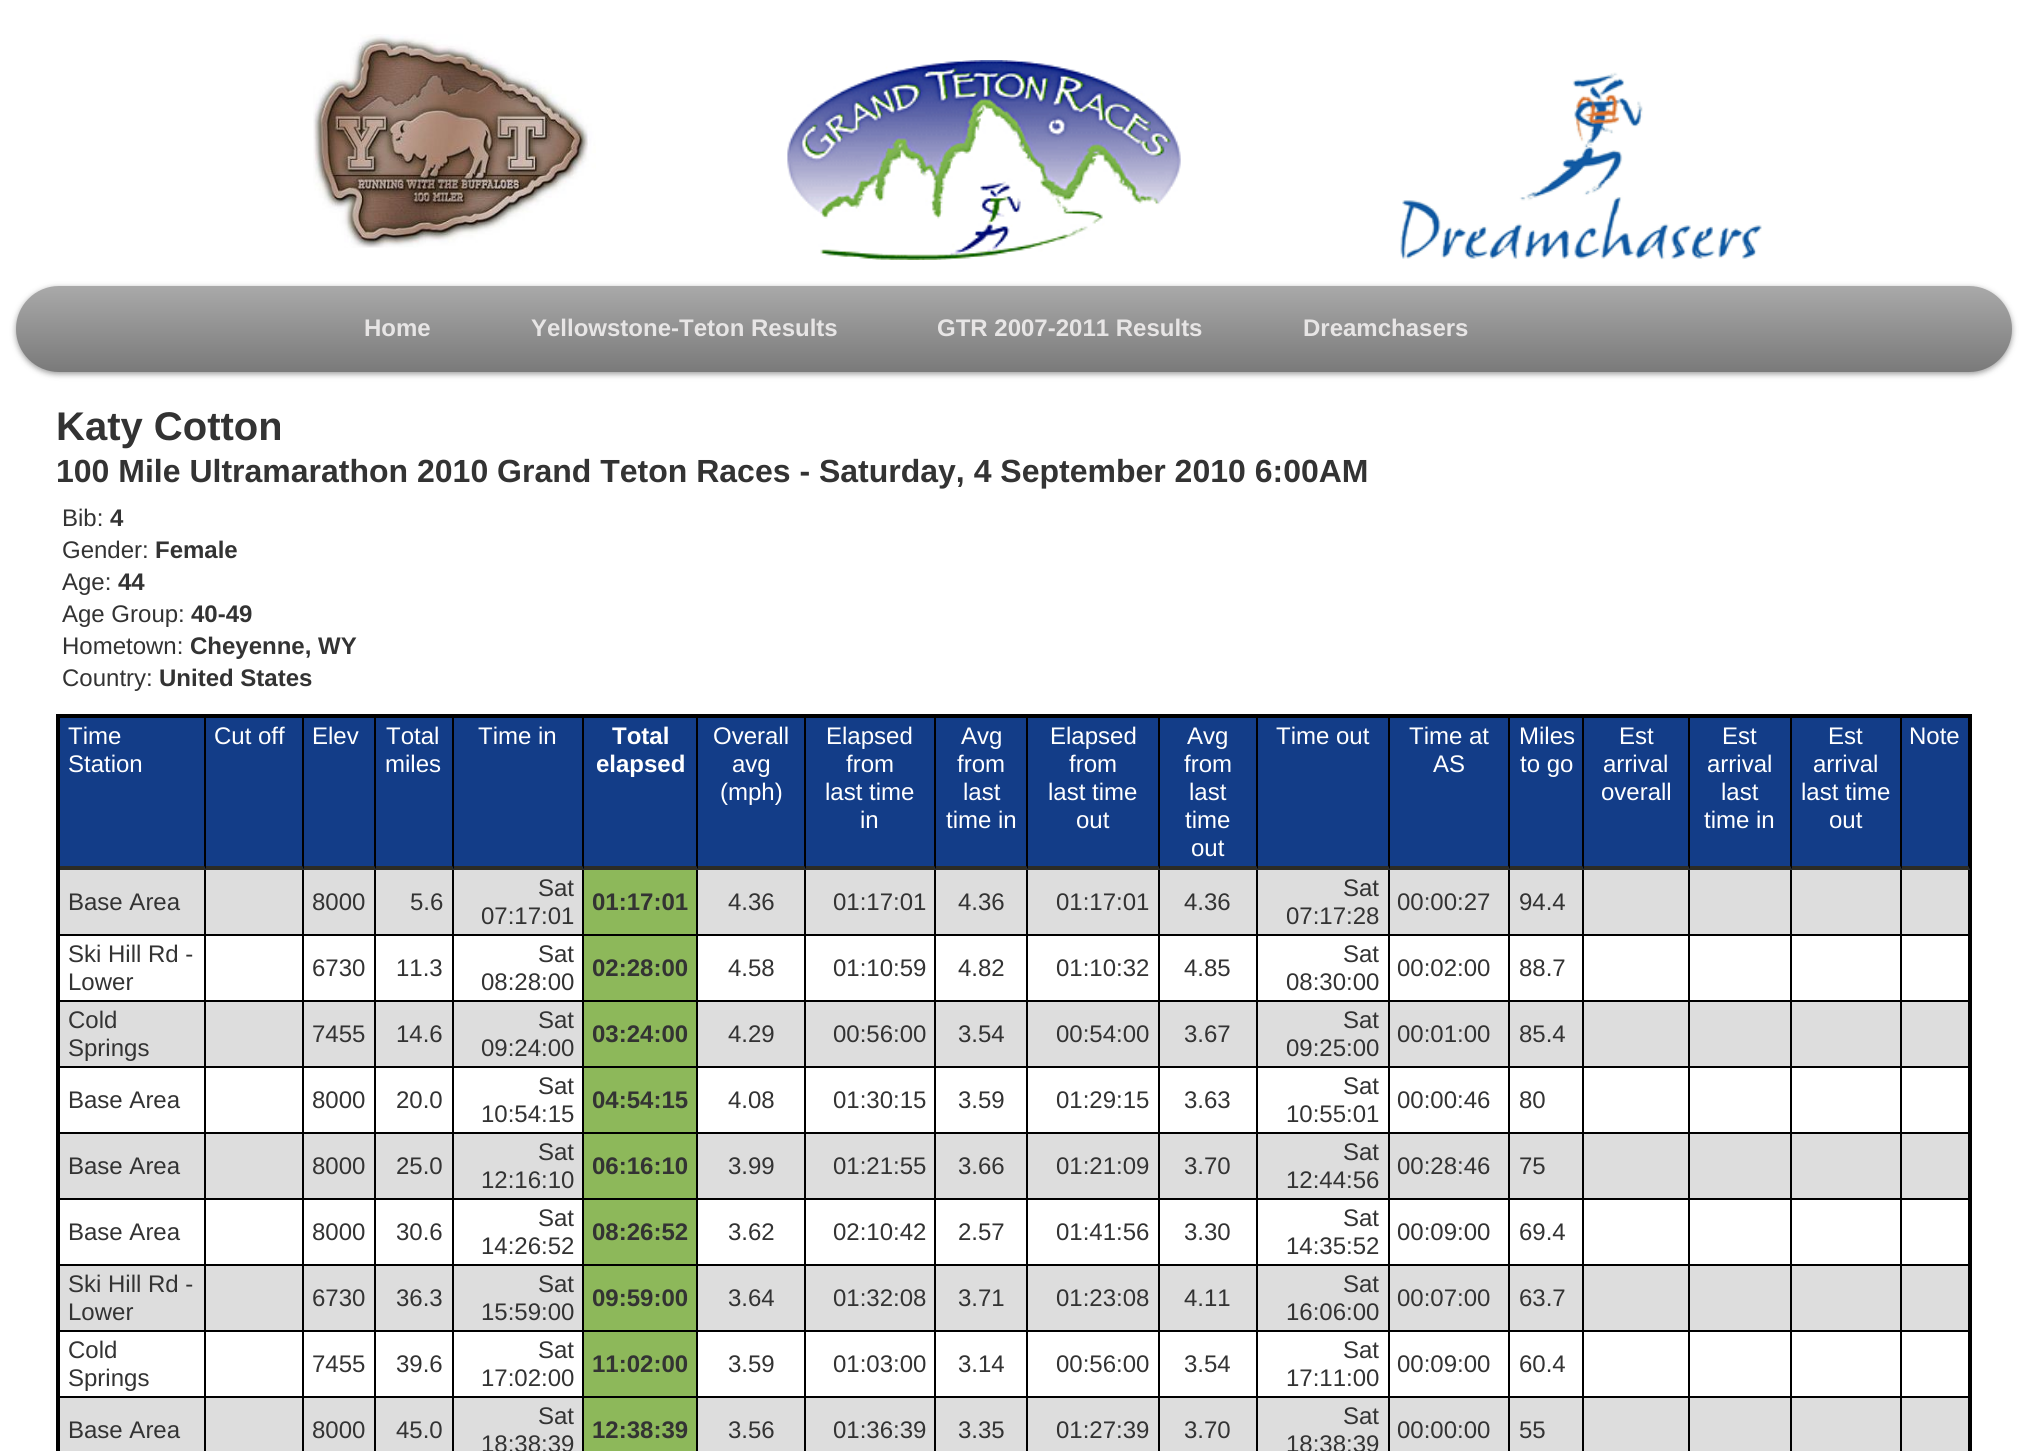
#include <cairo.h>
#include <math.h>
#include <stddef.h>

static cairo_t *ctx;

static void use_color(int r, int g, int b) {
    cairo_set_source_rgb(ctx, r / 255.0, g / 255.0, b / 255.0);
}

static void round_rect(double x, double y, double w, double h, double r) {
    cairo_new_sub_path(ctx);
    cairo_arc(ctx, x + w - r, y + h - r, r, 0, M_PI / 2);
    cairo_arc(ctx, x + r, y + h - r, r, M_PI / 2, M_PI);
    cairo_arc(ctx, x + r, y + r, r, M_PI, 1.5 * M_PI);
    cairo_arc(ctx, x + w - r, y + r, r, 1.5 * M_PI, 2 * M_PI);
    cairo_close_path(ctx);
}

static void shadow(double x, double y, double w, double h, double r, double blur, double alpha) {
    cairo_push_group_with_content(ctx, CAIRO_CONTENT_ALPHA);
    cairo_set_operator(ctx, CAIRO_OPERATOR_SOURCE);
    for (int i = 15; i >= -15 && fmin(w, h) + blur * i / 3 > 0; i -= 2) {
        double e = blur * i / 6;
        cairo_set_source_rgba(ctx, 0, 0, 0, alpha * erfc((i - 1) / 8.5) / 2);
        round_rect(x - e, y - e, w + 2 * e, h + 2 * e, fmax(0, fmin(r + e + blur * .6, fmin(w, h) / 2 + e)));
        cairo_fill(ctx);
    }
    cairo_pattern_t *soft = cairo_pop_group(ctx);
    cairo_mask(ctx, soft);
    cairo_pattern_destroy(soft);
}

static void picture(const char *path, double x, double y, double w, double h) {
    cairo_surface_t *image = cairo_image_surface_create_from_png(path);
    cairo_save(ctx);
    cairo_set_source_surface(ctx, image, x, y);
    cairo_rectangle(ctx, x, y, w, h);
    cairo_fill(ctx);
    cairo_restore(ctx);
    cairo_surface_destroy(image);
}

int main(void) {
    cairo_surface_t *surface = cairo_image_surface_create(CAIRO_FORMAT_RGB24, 2027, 1451);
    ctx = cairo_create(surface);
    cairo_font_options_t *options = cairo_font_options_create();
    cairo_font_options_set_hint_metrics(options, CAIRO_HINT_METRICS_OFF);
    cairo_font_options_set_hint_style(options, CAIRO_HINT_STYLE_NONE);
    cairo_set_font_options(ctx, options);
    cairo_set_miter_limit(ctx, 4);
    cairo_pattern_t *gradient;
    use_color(255, 255, 255);
    cairo_paint(ctx);
    picture("img1.png", 313, 34, 283, 214);
    picture("img2.png", 787, 60, 394, 200);
    picture("img3.png", 1400, 72, 362, 188);
    use_color(0, 0, 0);
    shadow(16, 288, 1996, 86, 43, 3, 0.4);
    gradient = cairo_pattern_create_linear(16, 286, 16, 372);
    cairo_pattern_add_color_stop_rgba(gradient, 0, 0.663, 0.663, 0.663, 1);
    cairo_pattern_add_color_stop_rgba(gradient, 1, 0.478, 0.478, 0.478, 1);
    cairo_set_source(ctx, gradient);
    cairo_pattern_destroy(gradient);
    round_rect(16, 286, 1996, 86, 43);
    cairo_fill(ctx);
    cairo_select_font_face(ctx, "Liberation Sans", CAIRO_FONT_SLANT_NORMAL, CAIRO_FONT_WEIGHT_BOLD);
    cairo_set_font_size(ctx, 24);
    use_color(231, 229, 229);
    cairo_move_to(ctx, 364, 336);
    cairo_show_text(ctx, "Home");
    cairo_move_to(ctx, 531, 336);
    cairo_show_text(ctx, "Yellowstone-Teton Results");
    cairo_move_to(ctx, 937, 336);
    cairo_show_text(ctx, "GTR 2007-2011 Results");
    cairo_move_to(ctx, 1303, 336);
    cairo_show_text(ctx, "Dreamchasers");
    cairo_set_font_size(ctx, 40);
    use_color(51, 51, 51);
    cairo_move_to(ctx, 56, 440);
    cairo_show_text(ctx, "Katy Cotton");
    cairo_set_font_size(ctx, 32);
    cairo_move_to(ctx, 56, 482);
    cairo_show_text(ctx, "100 Mile Ultramarathon 2010 Grand Teton Races - Saturday, 4 September 2010 6:00AM");
    cairo_select_font_face(ctx, "Liberation Sans", CAIRO_FONT_SLANT_NORMAL, CAIRO_FONT_WEIGHT_NORMAL);
    cairo_set_font_size(ctx, 24);
    cairo_move_to(ctx, 62, 526);
    cairo_show_text(ctx, "Bib:");
    cairo_select_font_face(ctx, "Liberation Sans", CAIRO_FONT_SLANT_NORMAL, CAIRO_FONT_WEIGHT_BOLD);
    cairo_move_to(ctx, 110, 526);
    cairo_show_text(ctx, "4");
    cairo_select_font_face(ctx, "Liberation Sans", CAIRO_FONT_SLANT_NORMAL, CAIRO_FONT_WEIGHT_NORMAL);
    cairo_move_to(ctx, 62, 558);
    cairo_show_text(ctx, "Gender:");
    cairo_select_font_face(ctx, "Liberation Sans", CAIRO_FONT_SLANT_NORMAL, CAIRO_FONT_WEIGHT_BOLD);
    cairo_move_to(ctx, 155, 558);
    cairo_show_text(ctx, "Female");
    cairo_select_font_face(ctx, "Liberation Sans", CAIRO_FONT_SLANT_NORMAL, CAIRO_FONT_WEIGHT_NORMAL);
    cairo_move_to(ctx, 62, 590);
    cairo_show_text(ctx, "Age:");
    cairo_select_font_face(ctx, "Liberation Sans", CAIRO_FONT_SLANT_NORMAL, CAIRO_FONT_WEIGHT_BOLD);
    cairo_move_to(ctx, 118, 590);
    cairo_show_text(ctx, "44");
    cairo_select_font_face(ctx, "Liberation Sans", CAIRO_FONT_SLANT_NORMAL, CAIRO_FONT_WEIGHT_NORMAL);
    cairo_move_to(ctx, 62, 622);
    cairo_show_text(ctx, "Age Group:");
    cairo_select_font_face(ctx, "Liberation Sans", CAIRO_FONT_SLANT_NORMAL, CAIRO_FONT_WEIGHT_BOLD);
    cairo_move_to(ctx, 191, 622);
    cairo_show_text(ctx, "40-49");
    cairo_select_font_face(ctx, "Liberation Sans", CAIRO_FONT_SLANT_NORMAL, CAIRO_FONT_WEIGHT_NORMAL);
    cairo_move_to(ctx, 62, 654);
    cairo_show_text(ctx, "Hometown:");
    cairo_select_font_face(ctx, "Liberation Sans", CAIRO_FONT_SLANT_NORMAL, CAIRO_FONT_WEIGHT_BOLD);
    cairo_move_to(ctx, 190, 654);
    cairo_show_text(ctx, "Cheyenne, WY");
    cairo_select_font_face(ctx, "Liberation Sans", CAIRO_FONT_SLANT_NORMAL, CAIRO_FONT_WEIGHT_NORMAL);
    cairo_move_to(ctx, 62, 686);
    cairo_show_text(ctx, "Country:");
    cairo_select_font_face(ctx, "Liberation Sans", CAIRO_FONT_SLANT_NORMAL, CAIRO_FONT_WEIGHT_BOLD);
    cairo_move_to(ctx, 159, 686);
    cairo_show_text(ctx, "United States");
    use_color(0, 0, 0);
    cairo_rectangle(ctx, 56, 714, 1916, 4);
    cairo_fill(ctx);
    cairo_rectangle(ctx, 1970, 714, 2, 737);
    cairo_fill(ctx);
    cairo_rectangle(ctx, 56, 714, 4, 737);
    cairo_fill(ctx);
    use_color(19, 61, 136);
    cairo_rectangle(ctx, 60, 718, 1910, 152);
    cairo_fill(ctx);
    use_color(0, 0, 0);
    cairo_new_path(ctx);
    cairo_move_to(ctx, 206, 718);
    cairo_line_to(ctx, 206, 870);
    cairo_line_to(ctx, 204, 866);
    cairo_line_to(ctx, 204, 718);
    cairo_close_path(ctx);
    cairo_fill(ctx);
    use_color(44, 44, 37);
    cairo_new_path(ctx);
    cairo_move_to(ctx, 206, 870);
    cairo_line_to(ctx, 60, 870);
    cairo_line_to(ctx, 60, 866);
    cairo_line_to(ctx, 204, 866);
    cairo_close_path(ctx);
    cairo_fill(ctx);
    cairo_select_font_face(ctx, "Liberation Sans", CAIRO_FONT_SLANT_NORMAL, CAIRO_FONT_WEIGHT_NORMAL);
    use_color(255, 255, 255);
    cairo_move_to(ctx, 68, 744);
    cairo_show_text(ctx, "Time");
    cairo_move_to(ctx, 68, 772);
    cairo_show_text(ctx, "Station");
    use_color(0, 0, 0);
    cairo_new_path(ctx);
    cairo_move_to(ctx, 304, 718);
    cairo_line_to(ctx, 304, 870);
    cairo_line_to(ctx, 302, 866);
    cairo_line_to(ctx, 302, 718);
    cairo_close_path(ctx);
    cairo_fill(ctx);
    use_color(44, 44, 37);
    cairo_new_path(ctx);
    cairo_move_to(ctx, 304, 870);
    cairo_line_to(ctx, 206, 870);
    cairo_line_to(ctx, 206, 866);
    cairo_line_to(ctx, 302, 866);
    cairo_close_path(ctx);
    cairo_fill(ctx);
    use_color(255, 255, 255);
    cairo_move_to(ctx, 214, 744);
    cairo_show_text(ctx, "Cut off");
    use_color(0, 0, 0);
    cairo_new_path(ctx);
    cairo_move_to(ctx, 376, 718);
    cairo_line_to(ctx, 376, 870);
    cairo_line_to(ctx, 374, 866);
    cairo_line_to(ctx, 374, 718);
    cairo_close_path(ctx);
    cairo_fill(ctx);
    use_color(44, 44, 37);
    cairo_new_path(ctx);
    cairo_move_to(ctx, 376, 870);
    cairo_line_to(ctx, 304, 870);
    cairo_line_to(ctx, 304, 866);
    cairo_line_to(ctx, 374, 866);
    cairo_close_path(ctx);
    cairo_fill(ctx);
    use_color(255, 255, 255);
    cairo_move_to(ctx, 312, 744);
    cairo_show_text(ctx, "Elev");
    use_color(0, 0, 0);
    cairo_new_path(ctx);
    cairo_move_to(ctx, 454, 718);
    cairo_line_to(ctx, 454, 870);
    cairo_line_to(ctx, 452, 866);
    cairo_line_to(ctx, 452, 718);
    cairo_close_path(ctx);
    cairo_fill(ctx);
    use_color(44, 44, 37);
    cairo_new_path(ctx);
    cairo_move_to(ctx, 454, 870);
    cairo_line_to(ctx, 376, 870);
    cairo_line_to(ctx, 376, 866);
    cairo_line_to(ctx, 452, 866);
    cairo_close_path(ctx);
    cairo_fill(ctx);
    use_color(255, 255, 255);
    cairo_move_to(ctx, 386, 744);
    cairo_show_text(ctx, "Total");
    cairo_move_to(ctx, 385, 772);
    cairo_show_text(ctx, "miles");
    use_color(0, 0, 0);
    cairo_new_path(ctx);
    cairo_move_to(ctx, 584, 718);
    cairo_line_to(ctx, 584, 870);
    cairo_line_to(ctx, 582, 866);
    cairo_line_to(ctx, 582, 718);
    cairo_close_path(ctx);
    cairo_fill(ctx);
    use_color(44, 44, 37);
    cairo_new_path(ctx);
    cairo_move_to(ctx, 584, 870);
    cairo_line_to(ctx, 454, 870);
    cairo_line_to(ctx, 454, 866);
    cairo_line_to(ctx, 582, 866);
    cairo_close_path(ctx);
    cairo_fill(ctx);
    use_color(255, 255, 255);
    cairo_move_to(ctx, 478, 744);
    cairo_show_text(ctx, "Time in");
    use_color(0, 0, 0);
    cairo_new_path(ctx);
    cairo_move_to(ctx, 698, 718);
    cairo_line_to(ctx, 698, 870);
    cairo_line_to(ctx, 696, 866);
    cairo_line_to(ctx, 696, 718);
    cairo_close_path(ctx);
    cairo_fill(ctx);
    use_color(44, 44, 37);
    cairo_new_path(ctx);
    cairo_move_to(ctx, 698, 870);
    cairo_line_to(ctx, 584, 870);
    cairo_line_to(ctx, 584, 866);
    cairo_line_to(ctx, 696, 866);
    cairo_close_path(ctx);
    cairo_fill(ctx);
    cairo_select_font_face(ctx, "Liberation Sans", CAIRO_FONT_SLANT_NORMAL, CAIRO_FONT_WEIGHT_BOLD);
    use_color(255, 255, 255);
    cairo_move_to(ctx, 612, 744);
    cairo_show_text(ctx, "Total");
    cairo_move_to(ctx, 596, 772);
    cairo_show_text(ctx, "elapsed");
    use_color(0, 0, 0);
    cairo_new_path(ctx);
    cairo_move_to(ctx, 806, 718);
    cairo_line_to(ctx, 806, 870);
    cairo_line_to(ctx, 804, 866);
    cairo_line_to(ctx, 804, 718);
    cairo_close_path(ctx);
    cairo_fill(ctx);
    use_color(44, 44, 37);
    cairo_new_path(ctx);
    cairo_move_to(ctx, 806, 870);
    cairo_line_to(ctx, 698, 870);
    cairo_line_to(ctx, 698, 866);
    cairo_line_to(ctx, 804, 866);
    cairo_close_path(ctx);
    cairo_fill(ctx);
    cairo_select_font_face(ctx, "Liberation Sans", CAIRO_FONT_SLANT_NORMAL, CAIRO_FONT_WEIGHT_NORMAL);
    use_color(255, 255, 255);
    cairo_move_to(ctx, 713, 744);
    cairo_show_text(ctx, "Overall");
    cairo_move_to(ctx, 732, 772);
    cairo_show_text(ctx, "avg");
    cairo_move_to(ctx, 720, 800);
    cairo_show_text(ctx, "(mph)");
    use_color(0, 0, 0);
    cairo_new_path(ctx);
    cairo_move_to(ctx, 936, 718);
    cairo_line_to(ctx, 936, 870);
    cairo_line_to(ctx, 934, 866);
    cairo_line_to(ctx, 934, 718);
    cairo_close_path(ctx);
    cairo_fill(ctx);
    use_color(44, 44, 37);
    cairo_new_path(ctx);
    cairo_move_to(ctx, 936, 870);
    cairo_line_to(ctx, 806, 870);
    cairo_line_to(ctx, 806, 866);
    cairo_line_to(ctx, 934, 866);
    cairo_close_path(ctx);
    cairo_fill(ctx);
    use_color(255, 255, 255);
    cairo_move_to(ctx, 826, 744);
    cairo_show_text(ctx, "Elapsed");
    cairo_move_to(ctx, 846, 772);
    cairo_show_text(ctx, "from");
    cairo_move_to(ctx, 825, 800);
    cairo_show_text(ctx, "last time");
    cairo_move_to(ctx, 860, 828);
    cairo_show_text(ctx, "in");
    use_color(0, 0, 0);
    cairo_new_path(ctx);
    cairo_move_to(ctx, 1028, 718);
    cairo_line_to(ctx, 1028, 870);
    cairo_line_to(ctx, 1026, 866);
    cairo_line_to(ctx, 1026, 718);
    cairo_close_path(ctx);
    cairo_fill(ctx);
    use_color(44, 44, 37);
    cairo_new_path(ctx);
    cairo_move_to(ctx, 1028, 870);
    cairo_line_to(ctx, 936, 870);
    cairo_line_to(ctx, 936, 866);
    cairo_line_to(ctx, 1026, 866);
    cairo_close_path(ctx);
    cairo_fill(ctx);
    use_color(255, 255, 255);
    cairo_move_to(ctx, 961, 744);
    cairo_show_text(ctx, "Avg");
    cairo_move_to(ctx, 957, 772);
    cairo_show_text(ctx, "from");
    cairo_move_to(ctx, 963, 800);
    cairo_show_text(ctx, "last");
    cairo_move_to(ctx, 946, 828);
    cairo_show_text(ctx, "time in");
    use_color(0, 0, 0);
    cairo_new_path(ctx);
    cairo_move_to(ctx, 1160, 718);
    cairo_line_to(ctx, 1160, 870);
    cairo_line_to(ctx, 1158, 866);
    cairo_line_to(ctx, 1158, 718);
    cairo_close_path(ctx);
    cairo_fill(ctx);
    use_color(44, 44, 37);
    cairo_new_path(ctx);
    cairo_move_to(ctx, 1160, 870);
    cairo_line_to(ctx, 1028, 870);
    cairo_line_to(ctx, 1028, 866);
    cairo_line_to(ctx, 1158, 866);
    cairo_close_path(ctx);
    cairo_fill(ctx);
    use_color(255, 255, 255);
    cairo_move_to(ctx, 1050, 744);
    cairo_show_text(ctx, "Elapsed");
    cairo_move_to(ctx, 1069, 772);
    cairo_show_text(ctx, "from");
    cairo_move_to(ctx, 1048, 800);
    cairo_show_text(ctx, "last time");
    cairo_move_to(ctx, 1076, 828);
    cairo_show_text(ctx, "out");
    use_color(0, 0, 0);
    cairo_new_path(ctx);
    cairo_move_to(ctx, 1258, 718);
    cairo_line_to(ctx, 1258, 870);
    cairo_line_to(ctx, 1256, 866);
    cairo_line_to(ctx, 1256, 718);
    cairo_close_path(ctx);
    cairo_fill(ctx);
    use_color(44, 44, 37);
    cairo_new_path(ctx);
    cairo_move_to(ctx, 1258, 870);
    cairo_line_to(ctx, 1160, 870);
    cairo_line_to(ctx, 1160, 866);
    cairo_line_to(ctx, 1256, 866);
    cairo_close_path(ctx);
    cairo_fill(ctx);
    use_color(255, 255, 255);
    cairo_move_to(ctx, 1187, 744);
    cairo_show_text(ctx, "Avg");
    cairo_move_to(ctx, 1184, 772);
    cairo_show_text(ctx, "from");
    cairo_move_to(ctx, 1189, 800);
    cairo_show_text(ctx, "last");
    cairo_move_to(ctx, 1185, 828);
    cairo_show_text(ctx, "time");
    cairo_move_to(ctx, 1191, 856);
    cairo_show_text(ctx, "out");
    use_color(0, 0, 0);
    cairo_new_path(ctx);
    cairo_move_to(ctx, 1390, 718);
    cairo_line_to(ctx, 1390, 870);
    cairo_line_to(ctx, 1388, 866);
    cairo_line_to(ctx, 1388, 718);
    cairo_close_path(ctx);
    cairo_fill(ctx);
    use_color(44, 44, 37);
    cairo_new_path(ctx);
    cairo_move_to(ctx, 1390, 870);
    cairo_line_to(ctx, 1258, 870);
    cairo_line_to(ctx, 1258, 866);
    cairo_line_to(ctx, 1388, 866);
    cairo_close_path(ctx);
    cairo_fill(ctx);
    use_color(255, 255, 255);
    cairo_move_to(ctx, 1276, 744);
    cairo_show_text(ctx, "Time out");
    use_color(0, 0, 0);
    cairo_new_path(ctx);
    cairo_move_to(ctx, 1510, 718);
    cairo_line_to(ctx, 1510, 870);
    cairo_line_to(ctx, 1508, 866);
    cairo_line_to(ctx, 1508, 718);
    cairo_close_path(ctx);
    cairo_fill(ctx);
    use_color(44, 44, 37);
    cairo_new_path(ctx);
    cairo_move_to(ctx, 1510, 870);
    cairo_line_to(ctx, 1390, 870);
    cairo_line_to(ctx, 1390, 866);
    cairo_line_to(ctx, 1508, 866);
    cairo_close_path(ctx);
    cairo_fill(ctx);
    use_color(255, 255, 255);
    cairo_move_to(ctx, 1409, 744);
    cairo_show_text(ctx, "Time at");
    cairo_move_to(ctx, 1433, 772);
    cairo_show_text(ctx, "AS");
    use_color(0, 0, 0);
    cairo_new_path(ctx);
    cairo_move_to(ctx, 1584, 718);
    cairo_line_to(ctx, 1584, 870);
    cairo_line_to(ctx, 1582, 866);
    cairo_line_to(ctx, 1582, 718);
    cairo_close_path(ctx);
    cairo_fill(ctx);
    use_color(44, 44, 37);
    cairo_new_path(ctx);
    cairo_move_to(ctx, 1584, 870);
    cairo_line_to(ctx, 1510, 870);
    cairo_line_to(ctx, 1510, 866);
    cairo_line_to(ctx, 1582, 866);
    cairo_close_path(ctx);
    cairo_fill(ctx);
    use_color(255, 255, 255);
    cairo_move_to(ctx, 1519, 744);
    cairo_show_text(ctx, "Miles");
    cairo_move_to(ctx, 1520, 772);
    cairo_show_text(ctx, "to go");
    use_color(0, 0, 0);
    cairo_new_path(ctx);
    cairo_move_to(ctx, 1690, 718);
    cairo_line_to(ctx, 1690, 870);
    cairo_line_to(ctx, 1688, 866);
    cairo_line_to(ctx, 1688, 718);
    cairo_close_path(ctx);
    cairo_fill(ctx);
    use_color(44, 44, 37);
    cairo_new_path(ctx);
    cairo_move_to(ctx, 1690, 870);
    cairo_line_to(ctx, 1584, 870);
    cairo_line_to(ctx, 1584, 866);
    cairo_line_to(ctx, 1688, 866);
    cairo_close_path(ctx);
    cairo_fill(ctx);
    use_color(255, 255, 255);
    cairo_move_to(ctx, 1619, 744);
    cairo_show_text(ctx, "Est");
    cairo_move_to(ctx, 1603, 772);
    cairo_show_text(ctx, "arrival");
    cairo_move_to(ctx, 1601, 800);
    cairo_show_text(ctx, "overall");
    use_color(0, 0, 0);
    cairo_new_path(ctx);
    cairo_move_to(ctx, 1792, 718);
    cairo_line_to(ctx, 1792, 870);
    cairo_line_to(ctx, 1790, 866);
    cairo_line_to(ctx, 1790, 718);
    cairo_close_path(ctx);
    cairo_fill(ctx);
    use_color(44, 44, 37);
    cairo_new_path(ctx);
    cairo_move_to(ctx, 1792, 870);
    cairo_line_to(ctx, 1690, 870);
    cairo_line_to(ctx, 1690, 866);
    cairo_line_to(ctx, 1790, 866);
    cairo_close_path(ctx);
    cairo_fill(ctx);
    use_color(255, 255, 255);
    cairo_move_to(ctx, 1722, 744);
    cairo_show_text(ctx, "Est");
    cairo_move_to(ctx, 1707, 772);
    cairo_show_text(ctx, "arrival");
    cairo_move_to(ctx, 1721, 800);
    cairo_show_text(ctx, "last");
    cairo_move_to(ctx, 1704, 828);
    cairo_show_text(ctx, "time in");
    use_color(0, 0, 0);
    cairo_new_path(ctx);
    cairo_move_to(ctx, 1902, 718);
    cairo_line_to(ctx, 1902, 870);
    cairo_line_to(ctx, 1900, 866);
    cairo_line_to(ctx, 1900, 718);
    cairo_close_path(ctx);
    cairo_fill(ctx);
    use_color(44, 44, 37);
    cairo_new_path(ctx);
    cairo_move_to(ctx, 1902, 870);
    cairo_line_to(ctx, 1792, 870);
    cairo_line_to(ctx, 1792, 866);
    cairo_line_to(ctx, 1900, 866);
    cairo_close_path(ctx);
    cairo_fill(ctx);
    use_color(255, 255, 255);
    cairo_move_to(ctx, 1828, 744);
    cairo_show_text(ctx, "Est");
    cairo_move_to(ctx, 1813, 772);
    cairo_show_text(ctx, "arrival");
    cairo_move_to(ctx, 1801, 800);
    cairo_show_text(ctx, "last time");
    cairo_move_to(ctx, 1829, 828);
    cairo_show_text(ctx, "out");
    use_color(0, 0, 0);
    cairo_new_path(ctx);
    cairo_move_to(ctx, 1970, 718);
    cairo_line_to(ctx, 1970, 870);
    cairo_line_to(ctx, 1968, 866);
    cairo_line_to(ctx, 1968, 718);
    cairo_close_path(ctx);
    cairo_fill(ctx);
    use_color(44, 44, 37);
    cairo_new_path(ctx);
    cairo_move_to(ctx, 1970, 870);
    cairo_line_to(ctx, 1902, 870);
    cairo_line_to(ctx, 1902, 866);
    cairo_line_to(ctx, 1968, 866);
    cairo_close_path(ctx);
    cairo_fill(ctx);
    use_color(255, 255, 255);
    cairo_move_to(ctx, 1909, 744);
    cairo_show_text(ctx, "Note");
    use_color(221, 221, 221);
    cairo_rectangle(ctx, 60, 870, 1908, 64);
    cairo_fill(ctx);
    use_color(0, 0, 0);
    cairo_rectangle(ctx, 204, 870, 2, 132);
    cairo_fill(ctx);
    cairo_rectangle(ctx, 60, 934, 146, 2);
    cairo_fill(ctx);
    use_color(51, 51, 51);
    cairo_move_to(ctx, 68, 910);
    cairo_show_text(ctx, "Base Area");
    use_color(0, 0, 0);
    cairo_rectangle(ctx, 302, 870, 2, 132);
    cairo_fill(ctx);
    cairo_rectangle(ctx, 206, 934, 98, 2);
    cairo_fill(ctx);
    cairo_rectangle(ctx, 374, 870, 2, 132);
    cairo_fill(ctx);
    cairo_rectangle(ctx, 304, 934, 72, 2);
    cairo_fill(ctx);
    use_color(51, 51, 51);
    cairo_move_to(ctx, 312, 910);
    cairo_show_text(ctx, "8000");
    use_color(0, 0, 0);
    cairo_rectangle(ctx, 452, 870, 2, 132);
    cairo_fill(ctx);
    cairo_rectangle(ctx, 376, 934, 78, 2);
    cairo_fill(ctx);
    use_color(51, 51, 51);
    cairo_move_to(ctx, 410, 910);
    cairo_show_text(ctx, "5.6");
    use_color(0, 0, 0);
    cairo_rectangle(ctx, 582, 870, 2, 132);
    cairo_fill(ctx);
    cairo_rectangle(ctx, 454, 934, 130, 2);
    cairo_fill(ctx);
    use_color(51, 51, 51);
    cairo_move_to(ctx, 538, 896);
    cairo_show_text(ctx, "Sat");
    cairo_move_to(ctx, 481, 924);
    cairo_show_text(ctx, "07:17:01");
    use_color(141, 184, 90);
    cairo_rectangle(ctx, 584, 870, 112, 64);
    cairo_fill(ctx);
    use_color(0, 0, 0);
    cairo_rectangle(ctx, 696, 870, 2, 132);
    cairo_fill(ctx);
    cairo_rectangle(ctx, 584, 934, 114, 2);
    cairo_fill(ctx);
    cairo_select_font_face(ctx, "Liberation Sans", CAIRO_FONT_SLANT_NORMAL, CAIRO_FONT_WEIGHT_BOLD);
    use_color(51, 51, 51);
    cairo_move_to(ctx, 592, 910);
    cairo_show_text(ctx, "01:17:01");
    use_color(0, 0, 0);
    cairo_rectangle(ctx, 804, 870, 2, 132);
    cairo_fill(ctx);
    cairo_rectangle(ctx, 698, 934, 108, 2);
    cairo_fill(ctx);
    cairo_select_font_face(ctx, "Liberation Sans", CAIRO_FONT_SLANT_NORMAL, CAIRO_FONT_WEIGHT_NORMAL);
    use_color(51, 51, 51);
    cairo_move_to(ctx, 728, 910);
    cairo_show_text(ctx, "4.36");
    use_color(0, 0, 0);
    cairo_rectangle(ctx, 934, 870, 2, 132);
    cairo_fill(ctx);
    cairo_rectangle(ctx, 806, 934, 130, 2);
    cairo_fill(ctx);
    use_color(51, 51, 51);
    cairo_move_to(ctx, 833, 910);
    cairo_show_text(ctx, "01:17:01");
    use_color(0, 0, 0);
    cairo_rectangle(ctx, 1026, 870, 2, 132);
    cairo_fill(ctx);
    cairo_rectangle(ctx, 936, 934, 92, 2);
    cairo_fill(ctx);
    use_color(51, 51, 51);
    cairo_move_to(ctx, 958, 910);
    cairo_show_text(ctx, "4.36");
    use_color(0, 0, 0);
    cairo_rectangle(ctx, 1158, 870, 2, 132);
    cairo_fill(ctx);
    cairo_rectangle(ctx, 1028, 934, 132, 2);
    cairo_fill(ctx);
    use_color(51, 51, 51);
    cairo_move_to(ctx, 1056, 910);
    cairo_show_text(ctx, "01:17:01");
    use_color(0, 0, 0);
    cairo_rectangle(ctx, 1256, 870, 2, 132);
    cairo_fill(ctx);
    cairo_rectangle(ctx, 1160, 934, 98, 2);
    cairo_fill(ctx);
    use_color(51, 51, 51);
    cairo_move_to(ctx, 1184, 910);
    cairo_show_text(ctx, "4.36");
    use_color(0, 0, 0);
    cairo_rectangle(ctx, 1388, 870, 2, 132);
    cairo_fill(ctx);
    cairo_rectangle(ctx, 1258, 934, 132, 2);
    cairo_fill(ctx);
    use_color(51, 51, 51);
    cairo_move_to(ctx, 1343, 896);
    cairo_show_text(ctx, "Sat");
    cairo_move_to(ctx, 1286, 924);
    cairo_show_text(ctx, "07:17:28");
    use_color(0, 0, 0);
    cairo_rectangle(ctx, 1508, 870, 2, 132);
    cairo_fill(ctx);
    cairo_rectangle(ctx, 1390, 934, 120, 2);
    cairo_fill(ctx);
    use_color(51, 51, 51);
    cairo_move_to(ctx, 1397, 910);
    cairo_show_text(ctx, "00:00:27");
    use_color(0, 0, 0);
    cairo_rectangle(ctx, 1582, 870, 2, 132);
    cairo_fill(ctx);
    cairo_rectangle(ctx, 1510, 934, 74, 2);
    cairo_fill(ctx);
    use_color(51, 51, 51);
    cairo_move_to(ctx, 1519, 910);
    cairo_show_text(ctx, "94.4");
    use_color(0, 0, 0);
    cairo_rectangle(ctx, 1688, 870, 2, 132);
    cairo_fill(ctx);
    cairo_rectangle(ctx, 1584, 934, 106, 2);
    cairo_fill(ctx);
    cairo_rectangle(ctx, 1790, 870, 2, 132);
    cairo_fill(ctx);
    cairo_rectangle(ctx, 1690, 934, 102, 2);
    cairo_fill(ctx);
    cairo_rectangle(ctx, 1900, 870, 2, 132);
    cairo_fill(ctx);
    cairo_rectangle(ctx, 1792, 934, 110, 2);
    cairo_fill(ctx);
    cairo_rectangle(ctx, 1968, 870, 2, 581);
    cairo_fill(ctx);
    cairo_rectangle(ctx, 1902, 934, 68, 2);
    cairo_fill(ctx);
    cairo_rectangle(ctx, 60, 1000, 1910, 2);
    cairo_fill(ctx);
    use_color(51, 51, 51);
    cairo_move_to(ctx, 68, 962);
    cairo_show_text(ctx, "Ski Hill Rd -");
    cairo_move_to(ctx, 68, 990);
    cairo_show_text(ctx, "Lower");
    cairo_move_to(ctx, 312, 976);
    cairo_show_text(ctx, "6730");
    cairo_move_to(ctx, 396, 976);
    cairo_show_text(ctx, "11.3");
    cairo_move_to(ctx, 538, 962);
    cairo_show_text(ctx, "Sat");
    cairo_move_to(ctx, 481, 990);
    cairo_show_text(ctx, "08:28:00");
    use_color(141, 184, 90);
    cairo_rectangle(ctx, 584, 936, 112, 64);
    cairo_fill(ctx);
    cairo_select_font_face(ctx, "Liberation Sans", CAIRO_FONT_SLANT_NORMAL, CAIRO_FONT_WEIGHT_BOLD);
    use_color(51, 51, 51);
    cairo_move_to(ctx, 592, 976);
    cairo_show_text(ctx, "02:28:00");
    cairo_select_font_face(ctx, "Liberation Sans", CAIRO_FONT_SLANT_NORMAL, CAIRO_FONT_WEIGHT_NORMAL);
    cairo_move_to(ctx, 728, 976);
    cairo_show_text(ctx, "4.58");
    cairo_move_to(ctx, 833, 976);
    cairo_show_text(ctx, "01:10:59");
    cairo_move_to(ctx, 958, 976);
    cairo_show_text(ctx, "4.82");
    cairo_move_to(ctx, 1056, 976);
    cairo_show_text(ctx, "01:10:32");
    cairo_move_to(ctx, 1184, 976);
    cairo_show_text(ctx, "4.85");
    cairo_move_to(ctx, 1343, 962);
    cairo_show_text(ctx, "Sat");
    cairo_move_to(ctx, 1286, 990);
    cairo_show_text(ctx, "08:30:00");
    cairo_move_to(ctx, 1397, 976);
    cairo_show_text(ctx, "00:02:00");
    cairo_move_to(ctx, 1519, 976);
    cairo_show_text(ctx, "88.7");
    use_color(221, 221, 221);
    cairo_rectangle(ctx, 60, 1002, 1908, 64);
    cairo_fill(ctx);
    use_color(0, 0, 0);
    cairo_rectangle(ctx, 204, 1002, 2, 132);
    cairo_fill(ctx);
    cairo_rectangle(ctx, 60, 1066, 146, 2);
    cairo_fill(ctx);
    use_color(51, 51, 51);
    cairo_move_to(ctx, 68, 1028);
    cairo_show_text(ctx, "Cold");
    cairo_move_to(ctx, 68, 1056);
    cairo_show_text(ctx, "Springs");
    use_color(0, 0, 0);
    cairo_rectangle(ctx, 302, 1002, 2, 132);
    cairo_fill(ctx);
    cairo_rectangle(ctx, 206, 1066, 98, 2);
    cairo_fill(ctx);
    cairo_rectangle(ctx, 374, 1002, 2, 132);
    cairo_fill(ctx);
    cairo_rectangle(ctx, 304, 1066, 72, 2);
    cairo_fill(ctx);
    use_color(51, 51, 51);
    cairo_move_to(ctx, 312, 1042);
    cairo_show_text(ctx, "7455");
    use_color(0, 0, 0);
    cairo_rectangle(ctx, 452, 1002, 2, 132);
    cairo_fill(ctx);
    cairo_rectangle(ctx, 376, 1066, 78, 2);
    cairo_fill(ctx);
    use_color(51, 51, 51);
    cairo_move_to(ctx, 396, 1042);
    cairo_show_text(ctx, "14.6");
    use_color(0, 0, 0);
    cairo_rectangle(ctx, 582, 1002, 2, 132);
    cairo_fill(ctx);
    cairo_rectangle(ctx, 454, 1066, 130, 2);
    cairo_fill(ctx);
    use_color(51, 51, 51);
    cairo_move_to(ctx, 538, 1028);
    cairo_show_text(ctx, "Sat");
    cairo_move_to(ctx, 481, 1056);
    cairo_show_text(ctx, "09:24:00");
    use_color(141, 184, 90);
    cairo_rectangle(ctx, 584, 1002, 112, 64);
    cairo_fill(ctx);
    use_color(0, 0, 0);
    cairo_rectangle(ctx, 696, 1002, 2, 132);
    cairo_fill(ctx);
    cairo_rectangle(ctx, 584, 1066, 114, 2);
    cairo_fill(ctx);
    cairo_select_font_face(ctx, "Liberation Sans", CAIRO_FONT_SLANT_NORMAL, CAIRO_FONT_WEIGHT_BOLD);
    use_color(51, 51, 51);
    cairo_move_to(ctx, 592, 1042);
    cairo_show_text(ctx, "03:24:00");
    use_color(0, 0, 0);
    cairo_rectangle(ctx, 804, 1002, 2, 132);
    cairo_fill(ctx);
    cairo_rectangle(ctx, 698, 1066, 108, 2);
    cairo_fill(ctx);
    cairo_select_font_face(ctx, "Liberation Sans", CAIRO_FONT_SLANT_NORMAL, CAIRO_FONT_WEIGHT_NORMAL);
    use_color(51, 51, 51);
    cairo_move_to(ctx, 728, 1042);
    cairo_show_text(ctx, "4.29");
    use_color(0, 0, 0);
    cairo_rectangle(ctx, 934, 1002, 2, 132);
    cairo_fill(ctx);
    cairo_rectangle(ctx, 806, 1066, 130, 2);
    cairo_fill(ctx);
    use_color(51, 51, 51);
    cairo_move_to(ctx, 833, 1042);
    cairo_show_text(ctx, "00:56:00");
    use_color(0, 0, 0);
    cairo_rectangle(ctx, 1026, 1002, 2, 132);
    cairo_fill(ctx);
    cairo_rectangle(ctx, 936, 1066, 92, 2);
    cairo_fill(ctx);
    use_color(51, 51, 51);
    cairo_move_to(ctx, 958, 1042);
    cairo_show_text(ctx, "3.54");
    use_color(0, 0, 0);
    cairo_rectangle(ctx, 1158, 1002, 2, 132);
    cairo_fill(ctx);
    cairo_rectangle(ctx, 1028, 1066, 132, 2);
    cairo_fill(ctx);
    use_color(51, 51, 51);
    cairo_move_to(ctx, 1056, 1042);
    cairo_show_text(ctx, "00:54:00");
    use_color(0, 0, 0);
    cairo_rectangle(ctx, 1256, 1002, 2, 132);
    cairo_fill(ctx);
    cairo_rectangle(ctx, 1160, 1066, 98, 2);
    cairo_fill(ctx);
    use_color(51, 51, 51);
    cairo_move_to(ctx, 1184, 1042);
    cairo_show_text(ctx, "3.67");
    use_color(0, 0, 0);
    cairo_rectangle(ctx, 1388, 1002, 2, 132);
    cairo_fill(ctx);
    cairo_rectangle(ctx, 1258, 1066, 132, 2);
    cairo_fill(ctx);
    use_color(51, 51, 51);
    cairo_move_to(ctx, 1343, 1028);
    cairo_show_text(ctx, "Sat");
    cairo_move_to(ctx, 1286, 1056);
    cairo_show_text(ctx, "09:25:00");
    use_color(0, 0, 0);
    cairo_rectangle(ctx, 1508, 1002, 2, 132);
    cairo_fill(ctx);
    cairo_rectangle(ctx, 1390, 1066, 120, 2);
    cairo_fill(ctx);
    use_color(51, 51, 51);
    cairo_move_to(ctx, 1397, 1042);
    cairo_show_text(ctx, "00:01:00");
    use_color(0, 0, 0);
    cairo_rectangle(ctx, 1582, 1002, 2, 132);
    cairo_fill(ctx);
    cairo_rectangle(ctx, 1510, 1066, 74, 2);
    cairo_fill(ctx);
    use_color(51, 51, 51);
    cairo_move_to(ctx, 1519, 1042);
    cairo_show_text(ctx, "85.4");
    use_color(0, 0, 0);
    cairo_rectangle(ctx, 1688, 1002, 2, 132);
    cairo_fill(ctx);
    cairo_rectangle(ctx, 1584, 1066, 106, 2);
    cairo_fill(ctx);
    cairo_rectangle(ctx, 1790, 1002, 2, 132);
    cairo_fill(ctx);
    cairo_rectangle(ctx, 1690, 1066, 102, 2);
    cairo_fill(ctx);
    cairo_rectangle(ctx, 1900, 1002, 2, 132);
    cairo_fill(ctx);
    cairo_rectangle(ctx, 1792, 1066, 178, 2);
    cairo_fill(ctx);
    cairo_rectangle(ctx, 60, 1132, 1910, 2);
    cairo_fill(ctx);
    use_color(51, 51, 51);
    cairo_move_to(ctx, 68, 1108);
    cairo_show_text(ctx, "Base Area");
    cairo_move_to(ctx, 312, 1108);
    cairo_show_text(ctx, "8000");
    cairo_move_to(ctx, 396, 1108);
    cairo_show_text(ctx, "20.0");
    cairo_move_to(ctx, 538, 1094);
    cairo_show_text(ctx, "Sat");
    cairo_move_to(ctx, 481, 1122);
    cairo_show_text(ctx, "10:54:15");
    use_color(141, 184, 90);
    cairo_rectangle(ctx, 584, 1068, 112, 64);
    cairo_fill(ctx);
    cairo_select_font_face(ctx, "Liberation Sans", CAIRO_FONT_SLANT_NORMAL, CAIRO_FONT_WEIGHT_BOLD);
    use_color(51, 51, 51);
    cairo_move_to(ctx, 592, 1108);
    cairo_show_text(ctx, "04:54:15");
    cairo_select_font_face(ctx, "Liberation Sans", CAIRO_FONT_SLANT_NORMAL, CAIRO_FONT_WEIGHT_NORMAL);
    cairo_move_to(ctx, 728, 1108);
    cairo_show_text(ctx, "4.08");
    cairo_move_to(ctx, 833, 1108);
    cairo_show_text(ctx, "01:30:15");
    cairo_move_to(ctx, 958, 1108);
    cairo_show_text(ctx, "3.59");
    cairo_move_to(ctx, 1056, 1108);
    cairo_show_text(ctx, "01:29:15");
    cairo_move_to(ctx, 1184, 1108);
    cairo_show_text(ctx, "3.63");
    cairo_move_to(ctx, 1343, 1094);
    cairo_show_text(ctx, "Sat");
    cairo_move_to(ctx, 1286, 1122);
    cairo_show_text(ctx, "10:55:01");
    cairo_move_to(ctx, 1397, 1108);
    cairo_show_text(ctx, "00:00:46");
    cairo_move_to(ctx, 1519, 1108);
    cairo_show_text(ctx, "80");
    use_color(221, 221, 221);
    cairo_rectangle(ctx, 60, 1134, 1908, 64);
    cairo_fill(ctx);
    use_color(0, 0, 0);
    cairo_rectangle(ctx, 204, 1134, 2, 132);
    cairo_fill(ctx);
    cairo_rectangle(ctx, 60, 1198, 146, 2);
    cairo_fill(ctx);
    use_color(51, 51, 51);
    cairo_move_to(ctx, 68, 1174);
    cairo_show_text(ctx, "Base Area");
    use_color(0, 0, 0);
    cairo_rectangle(ctx, 302, 1134, 2, 132);
    cairo_fill(ctx);
    cairo_rectangle(ctx, 206, 1198, 98, 2);
    cairo_fill(ctx);
    cairo_rectangle(ctx, 374, 1134, 2, 132);
    cairo_fill(ctx);
    cairo_rectangle(ctx, 304, 1198, 72, 2);
    cairo_fill(ctx);
    use_color(51, 51, 51);
    cairo_move_to(ctx, 312, 1174);
    cairo_show_text(ctx, "8000");
    use_color(0, 0, 0);
    cairo_rectangle(ctx, 452, 1134, 2, 132);
    cairo_fill(ctx);
    cairo_rectangle(ctx, 376, 1198, 78, 2);
    cairo_fill(ctx);
    use_color(51, 51, 51);
    cairo_move_to(ctx, 396, 1174);
    cairo_show_text(ctx, "25.0");
    use_color(0, 0, 0);
    cairo_rectangle(ctx, 582, 1134, 2, 132);
    cairo_fill(ctx);
    cairo_rectangle(ctx, 454, 1198, 130, 2);
    cairo_fill(ctx);
    use_color(51, 51, 51);
    cairo_move_to(ctx, 538, 1160);
    cairo_show_text(ctx, "Sat");
    cairo_move_to(ctx, 481, 1188);
    cairo_show_text(ctx, "12:16:10");
    use_color(141, 184, 90);
    cairo_rectangle(ctx, 584, 1134, 112, 64);
    cairo_fill(ctx);
    use_color(0, 0, 0);
    cairo_rectangle(ctx, 696, 1134, 2, 132);
    cairo_fill(ctx);
    cairo_rectangle(ctx, 584, 1198, 114, 2);
    cairo_fill(ctx);
    cairo_select_font_face(ctx, "Liberation Sans", CAIRO_FONT_SLANT_NORMAL, CAIRO_FONT_WEIGHT_BOLD);
    use_color(51, 51, 51);
    cairo_move_to(ctx, 592, 1174);
    cairo_show_text(ctx, "06:16:10");
    use_color(0, 0, 0);
    cairo_rectangle(ctx, 804, 1134, 2, 132);
    cairo_fill(ctx);
    cairo_rectangle(ctx, 698, 1198, 108, 2);
    cairo_fill(ctx);
    cairo_select_font_face(ctx, "Liberation Sans", CAIRO_FONT_SLANT_NORMAL, CAIRO_FONT_WEIGHT_NORMAL);
    use_color(51, 51, 51);
    cairo_move_to(ctx, 728, 1174);
    cairo_show_text(ctx, "3.99");
    use_color(0, 0, 0);
    cairo_rectangle(ctx, 934, 1134, 2, 132);
    cairo_fill(ctx);
    cairo_rectangle(ctx, 806, 1198, 130, 2);
    cairo_fill(ctx);
    use_color(51, 51, 51);
    cairo_move_to(ctx, 833, 1174);
    cairo_show_text(ctx, "01:21:55");
    use_color(0, 0, 0);
    cairo_rectangle(ctx, 1026, 1134, 2, 132);
    cairo_fill(ctx);
    cairo_rectangle(ctx, 936, 1198, 92, 2);
    cairo_fill(ctx);
    use_color(51, 51, 51);
    cairo_move_to(ctx, 958, 1174);
    cairo_show_text(ctx, "3.66");
    use_color(0, 0, 0);
    cairo_rectangle(ctx, 1158, 1134, 2, 132);
    cairo_fill(ctx);
    cairo_rectangle(ctx, 1028, 1198, 132, 2);
    cairo_fill(ctx);
    use_color(51, 51, 51);
    cairo_move_to(ctx, 1056, 1174);
    cairo_show_text(ctx, "01:21:09");
    use_color(0, 0, 0);
    cairo_rectangle(ctx, 1256, 1134, 2, 132);
    cairo_fill(ctx);
    cairo_rectangle(ctx, 1160, 1198, 98, 2);
    cairo_fill(ctx);
    use_color(51, 51, 51);
    cairo_move_to(ctx, 1184, 1174);
    cairo_show_text(ctx, "3.70");
    use_color(0, 0, 0);
    cairo_rectangle(ctx, 1388, 1134, 2, 132);
    cairo_fill(ctx);
    cairo_rectangle(ctx, 1258, 1198, 132, 2);
    cairo_fill(ctx);
    use_color(51, 51, 51);
    cairo_move_to(ctx, 1343, 1160);
    cairo_show_text(ctx, "Sat");
    cairo_move_to(ctx, 1286, 1188);
    cairo_show_text(ctx, "12:44:56");
    use_color(0, 0, 0);
    cairo_rectangle(ctx, 1508, 1134, 2, 132);
    cairo_fill(ctx);
    cairo_rectangle(ctx, 1390, 1198, 120, 2);
    cairo_fill(ctx);
    use_color(51, 51, 51);
    cairo_move_to(ctx, 1397, 1174);
    cairo_show_text(ctx, "00:28:46");
    use_color(0, 0, 0);
    cairo_rectangle(ctx, 1582, 1134, 2, 132);
    cairo_fill(ctx);
    cairo_rectangle(ctx, 1510, 1198, 74, 2);
    cairo_fill(ctx);
    use_color(51, 51, 51);
    cairo_move_to(ctx, 1519, 1174);
    cairo_show_text(ctx, "75");
    use_color(0, 0, 0);
    cairo_rectangle(ctx, 1688, 1134, 2, 132);
    cairo_fill(ctx);
    cairo_rectangle(ctx, 1584, 1198, 106, 2);
    cairo_fill(ctx);
    cairo_rectangle(ctx, 1790, 1134, 2, 132);
    cairo_fill(ctx);
    cairo_rectangle(ctx, 1690, 1198, 102, 2);
    cairo_fill(ctx);
    cairo_rectangle(ctx, 1900, 1134, 2, 132);
    cairo_fill(ctx);
    cairo_rectangle(ctx, 1792, 1198, 178, 2);
    cairo_fill(ctx);
    cairo_rectangle(ctx, 60, 1264, 1910, 2);
    cairo_fill(ctx);
    use_color(51, 51, 51);
    cairo_move_to(ctx, 68, 1240);
    cairo_show_text(ctx, "Base Area");
    cairo_move_to(ctx, 312, 1240);
    cairo_show_text(ctx, "8000");
    cairo_move_to(ctx, 396, 1240);
    cairo_show_text(ctx, "30.6");
    cairo_move_to(ctx, 538, 1226);
    cairo_show_text(ctx, "Sat");
    cairo_move_to(ctx, 481, 1254);
    cairo_show_text(ctx, "14:26:52");
    use_color(141, 184, 90);
    cairo_rectangle(ctx, 584, 1200, 112, 64);
    cairo_fill(ctx);
    cairo_select_font_face(ctx, "Liberation Sans", CAIRO_FONT_SLANT_NORMAL, CAIRO_FONT_WEIGHT_BOLD);
    use_color(51, 51, 51);
    cairo_move_to(ctx, 592, 1240);
    cairo_show_text(ctx, "08:26:52");
    cairo_select_font_face(ctx, "Liberation Sans", CAIRO_FONT_SLANT_NORMAL, CAIRO_FONT_WEIGHT_NORMAL);
    cairo_move_to(ctx, 728, 1240);
    cairo_show_text(ctx, "3.62");
    cairo_move_to(ctx, 833, 1240);
    cairo_show_text(ctx, "02:10:42");
    cairo_move_to(ctx, 958, 1240);
    cairo_show_text(ctx, "2.57");
    cairo_move_to(ctx, 1056, 1240);
    cairo_show_text(ctx, "01:41:56");
    cairo_move_to(ctx, 1184, 1240);
    cairo_show_text(ctx, "3.30");
    cairo_move_to(ctx, 1343, 1226);
    cairo_show_text(ctx, "Sat");
    cairo_move_to(ctx, 1286, 1254);
    cairo_show_text(ctx, "14:35:52");
    cairo_move_to(ctx, 1397, 1240);
    cairo_show_text(ctx, "00:09:00");
    cairo_move_to(ctx, 1519, 1240);
    cairo_show_text(ctx, "69.4");
    use_color(221, 221, 221);
    cairo_rectangle(ctx, 60, 1266, 1908, 64);
    cairo_fill(ctx);
    use_color(0, 0, 0);
    cairo_rectangle(ctx, 204, 1266, 2, 132);
    cairo_fill(ctx);
    cairo_rectangle(ctx, 60, 1330, 146, 2);
    cairo_fill(ctx);
    use_color(51, 51, 51);
    cairo_move_to(ctx, 68, 1292);
    cairo_show_text(ctx, "Ski Hill Rd -");
    cairo_move_to(ctx, 68, 1320);
    cairo_show_text(ctx, "Lower");
    use_color(0, 0, 0);
    cairo_rectangle(ctx, 302, 1266, 2, 132);
    cairo_fill(ctx);
    cairo_rectangle(ctx, 206, 1330, 98, 2);
    cairo_fill(ctx);
    cairo_rectangle(ctx, 374, 1266, 2, 132);
    cairo_fill(ctx);
    cairo_rectangle(ctx, 304, 1330, 72, 2);
    cairo_fill(ctx);
    use_color(51, 51, 51);
    cairo_move_to(ctx, 312, 1306);
    cairo_show_text(ctx, "6730");
    use_color(0, 0, 0);
    cairo_rectangle(ctx, 452, 1266, 2, 132);
    cairo_fill(ctx);
    cairo_rectangle(ctx, 376, 1330, 78, 2);
    cairo_fill(ctx);
    use_color(51, 51, 51);
    cairo_move_to(ctx, 396, 1306);
    cairo_show_text(ctx, "36.3");
    use_color(0, 0, 0);
    cairo_rectangle(ctx, 582, 1266, 2, 132);
    cairo_fill(ctx);
    cairo_rectangle(ctx, 454, 1330, 130, 2);
    cairo_fill(ctx);
    use_color(51, 51, 51);
    cairo_move_to(ctx, 538, 1292);
    cairo_show_text(ctx, "Sat");
    cairo_move_to(ctx, 481, 1320);
    cairo_show_text(ctx, "15:59:00");
    use_color(141, 184, 90);
    cairo_rectangle(ctx, 584, 1266, 112, 64);
    cairo_fill(ctx);
    use_color(0, 0, 0);
    cairo_rectangle(ctx, 696, 1266, 2, 132);
    cairo_fill(ctx);
    cairo_rectangle(ctx, 584, 1330, 114, 2);
    cairo_fill(ctx);
    cairo_select_font_face(ctx, "Liberation Sans", CAIRO_FONT_SLANT_NORMAL, CAIRO_FONT_WEIGHT_BOLD);
    use_color(51, 51, 51);
    cairo_move_to(ctx, 592, 1306);
    cairo_show_text(ctx, "09:59:00");
    use_color(0, 0, 0);
    cairo_rectangle(ctx, 804, 1266, 2, 132);
    cairo_fill(ctx);
    cairo_rectangle(ctx, 698, 1330, 108, 2);
    cairo_fill(ctx);
    cairo_select_font_face(ctx, "Liberation Sans", CAIRO_FONT_SLANT_NORMAL, CAIRO_FONT_WEIGHT_NORMAL);
    use_color(51, 51, 51);
    cairo_move_to(ctx, 728, 1306);
    cairo_show_text(ctx, "3.64");
    use_color(0, 0, 0);
    cairo_rectangle(ctx, 934, 1266, 2, 132);
    cairo_fill(ctx);
    cairo_rectangle(ctx, 806, 1330, 130, 2);
    cairo_fill(ctx);
    use_color(51, 51, 51);
    cairo_move_to(ctx, 833, 1306);
    cairo_show_text(ctx, "01:32:08");
    use_color(0, 0, 0);
    cairo_rectangle(ctx, 1026, 1266, 2, 132);
    cairo_fill(ctx);
    cairo_rectangle(ctx, 936, 1330, 92, 2);
    cairo_fill(ctx);
    use_color(51, 51, 51);
    cairo_move_to(ctx, 958, 1306);
    cairo_show_text(ctx, "3.71");
    use_color(0, 0, 0);
    cairo_rectangle(ctx, 1158, 1266, 2, 132);
    cairo_fill(ctx);
    cairo_rectangle(ctx, 1028, 1330, 132, 2);
    cairo_fill(ctx);
    use_color(51, 51, 51);
    cairo_move_to(ctx, 1056, 1306);
    cairo_show_text(ctx, "01:23:08");
    use_color(0, 0, 0);
    cairo_rectangle(ctx, 1256, 1266, 2, 132);
    cairo_fill(ctx);
    cairo_rectangle(ctx, 1160, 1330, 98, 2);
    cairo_fill(ctx);
    use_color(51, 51, 51);
    cairo_move_to(ctx, 1184, 1306);
    cairo_show_text(ctx, "4.11");
    use_color(0, 0, 0);
    cairo_rectangle(ctx, 1388, 1266, 2, 132);
    cairo_fill(ctx);
    cairo_rectangle(ctx, 1258, 1330, 132, 2);
    cairo_fill(ctx);
    use_color(51, 51, 51);
    cairo_move_to(ctx, 1343, 1292);
    cairo_show_text(ctx, "Sat");
    cairo_move_to(ctx, 1286, 1320);
    cairo_show_text(ctx, "16:06:00");
    use_color(0, 0, 0);
    cairo_rectangle(ctx, 1508, 1266, 2, 132);
    cairo_fill(ctx);
    cairo_rectangle(ctx, 1390, 1330, 120, 2);
    cairo_fill(ctx);
    use_color(51, 51, 51);
    cairo_move_to(ctx, 1397, 1306);
    cairo_show_text(ctx, "00:07:00");
    use_color(0, 0, 0);
    cairo_rectangle(ctx, 1582, 1266, 2, 132);
    cairo_fill(ctx);
    cairo_rectangle(ctx, 1510, 1330, 74, 2);
    cairo_fill(ctx);
    use_color(51, 51, 51);
    cairo_move_to(ctx, 1519, 1306);
    cairo_show_text(ctx, "63.7");
    use_color(0, 0, 0);
    cairo_rectangle(ctx, 1688, 1266, 2, 132);
    cairo_fill(ctx);
    cairo_rectangle(ctx, 1584, 1330, 106, 2);
    cairo_fill(ctx);
    cairo_rectangle(ctx, 1790, 1266, 2, 132);
    cairo_fill(ctx);
    cairo_rectangle(ctx, 1690, 1330, 102, 2);
    cairo_fill(ctx);
    cairo_rectangle(ctx, 1900, 1266, 2, 132);
    cairo_fill(ctx);
    cairo_rectangle(ctx, 1792, 1330, 178, 2);
    cairo_fill(ctx);
    cairo_rectangle(ctx, 60, 1396, 1910, 2);
    cairo_fill(ctx);
    use_color(51, 51, 51);
    cairo_move_to(ctx, 68, 1358);
    cairo_show_text(ctx, "Cold");
    cairo_move_to(ctx, 68, 1386);
    cairo_show_text(ctx, "Springs");
    cairo_move_to(ctx, 312, 1372);
    cairo_show_text(ctx, "7455");
    cairo_move_to(ctx, 396, 1372);
    cairo_show_text(ctx, "39.6");
    cairo_move_to(ctx, 538, 1358);
    cairo_show_text(ctx, "Sat");
    cairo_move_to(ctx, 481, 1386);
    cairo_show_text(ctx, "17:02:00");
    use_color(141, 184, 90);
    cairo_rectangle(ctx, 584, 1332, 112, 64);
    cairo_fill(ctx);
    cairo_select_font_face(ctx, "Liberation Sans", CAIRO_FONT_SLANT_NORMAL, CAIRO_FONT_WEIGHT_BOLD);
    use_color(51, 51, 51);
    cairo_move_to(ctx, 592, 1372);
    cairo_show_text(ctx, "11:02:00");
    cairo_select_font_face(ctx, "Liberation Sans", CAIRO_FONT_SLANT_NORMAL, CAIRO_FONT_WEIGHT_NORMAL);
    cairo_move_to(ctx, 728, 1372);
    cairo_show_text(ctx, "3.59");
    cairo_move_to(ctx, 833, 1372);
    cairo_show_text(ctx, "01:03:00");
    cairo_move_to(ctx, 958, 1372);
    cairo_show_text(ctx, "3.14");
    cairo_move_to(ctx, 1056, 1372);
    cairo_show_text(ctx, "00:56:00");
    cairo_move_to(ctx, 1184, 1372);
    cairo_show_text(ctx, "3.54");
    cairo_move_to(ctx, 1343, 1358);
    cairo_show_text(ctx, "Sat");
    cairo_move_to(ctx, 1286, 1386);
    cairo_show_text(ctx, "17:11:00");
    cairo_move_to(ctx, 1397, 1372);
    cairo_show_text(ctx, "00:09:00");
    cairo_move_to(ctx, 1519, 1372);
    cairo_show_text(ctx, "60.4");
    use_color(221, 221, 221);
    cairo_rectangle(ctx, 60, 1398, 1908, 53);
    cairo_fill(ctx);
    use_color(0, 0, 0);
    cairo_rectangle(ctx, 204, 1398, 2, 53);
    cairo_fill(ctx);
    use_color(51, 51, 51);
    cairo_move_to(ctx, 68, 1438);
    cairo_show_text(ctx, "Base Area");
    use_color(0, 0, 0);
    cairo_rectangle(ctx, 302, 1398, 2, 53);
    cairo_fill(ctx);
    cairo_rectangle(ctx, 374, 1398, 2, 53);
    cairo_fill(ctx);
    use_color(51, 51, 51);
    cairo_move_to(ctx, 312, 1438);
    cairo_show_text(ctx, "8000");
    use_color(0, 0, 0);
    cairo_rectangle(ctx, 452, 1398, 2, 53);
    cairo_fill(ctx);
    use_color(51, 51, 51);
    cairo_move_to(ctx, 396, 1438);
    cairo_show_text(ctx, "45.0");
    use_color(0, 0, 0);
    cairo_rectangle(ctx, 582, 1398, 2, 53);
    cairo_fill(ctx);
    use_color(51, 51, 51);
    cairo_move_to(ctx, 538, 1424);
    cairo_show_text(ctx, "Sat");
    cairo_move_to(ctx, 481, 1452);
    cairo_show_text(ctx, "18:38:39");
    use_color(141, 184, 90);
    cairo_rectangle(ctx, 584, 1398, 112, 53);
    cairo_fill(ctx);
    use_color(0, 0, 0);
    cairo_rectangle(ctx, 696, 1398, 2, 53);
    cairo_fill(ctx);
    cairo_select_font_face(ctx, "Liberation Sans", CAIRO_FONT_SLANT_NORMAL, CAIRO_FONT_WEIGHT_BOLD);
    use_color(51, 51, 51);
    cairo_move_to(ctx, 592, 1438);
    cairo_show_text(ctx, "12:38:39");
    use_color(0, 0, 0);
    cairo_rectangle(ctx, 804, 1398, 2, 53);
    cairo_fill(ctx);
    cairo_select_font_face(ctx, "Liberation Sans", CAIRO_FONT_SLANT_NORMAL, CAIRO_FONT_WEIGHT_NORMAL);
    use_color(51, 51, 51);
    cairo_move_to(ctx, 728, 1438);
    cairo_show_text(ctx, "3.56");
    use_color(0, 0, 0);
    cairo_rectangle(ctx, 934, 1398, 2, 53);
    cairo_fill(ctx);
    use_color(51, 51, 51);
    cairo_move_to(ctx, 833, 1438);
    cairo_show_text(ctx, "01:36:39");
    use_color(0, 0, 0);
    cairo_rectangle(ctx, 1026, 1398, 2, 53);
    cairo_fill(ctx);
    use_color(51, 51, 51);
    cairo_move_to(ctx, 958, 1438);
    cairo_show_text(ctx, "3.35");
    use_color(0, 0, 0);
    cairo_rectangle(ctx, 1158, 1398, 2, 53);
    cairo_fill(ctx);
    use_color(51, 51, 51);
    cairo_move_to(ctx, 1056, 1438);
    cairo_show_text(ctx, "01:27:39");
    use_color(0, 0, 0);
    cairo_rectangle(ctx, 1256, 1398, 2, 53);
    cairo_fill(ctx);
    use_color(51, 51, 51);
    cairo_move_to(ctx, 1184, 1438);
    cairo_show_text(ctx, "3.70");
    use_color(0, 0, 0);
    cairo_rectangle(ctx, 1388, 1398, 2, 53);
    cairo_fill(ctx);
    use_color(51, 51, 51);
    cairo_move_to(ctx, 1343, 1424);
    cairo_show_text(ctx, "Sat");
    cairo_move_to(ctx, 1286, 1452);
    cairo_show_text(ctx, "18:38:39");
    use_color(0, 0, 0);
    cairo_rectangle(ctx, 1508, 1398, 2, 53);
    cairo_fill(ctx);
    use_color(51, 51, 51);
    cairo_move_to(ctx, 1397, 1438);
    cairo_show_text(ctx, "00:00:00");
    use_color(0, 0, 0);
    cairo_rectangle(ctx, 1582, 1398, 2, 53);
    cairo_fill(ctx);
    use_color(51, 51, 51);
    cairo_move_to(ctx, 1519, 1438);
    cairo_show_text(ctx, "55");
    use_color(0, 0, 0);
    cairo_rectangle(ctx, 1688, 1398, 2, 53);
    cairo_fill(ctx);
    cairo_rectangle(ctx, 1790, 1398, 2, 53);
    cairo_fill(ctx);
    cairo_rectangle(ctx, 1900, 1398, 2, 53);
    cairo_fill(ctx);
    cairo_surface_write_to_png(surface, "result.png");
    cairo_font_options_destroy(options);
    cairo_destroy(ctx);
    cairo_surface_destroy(surface);
    return 0;
}
